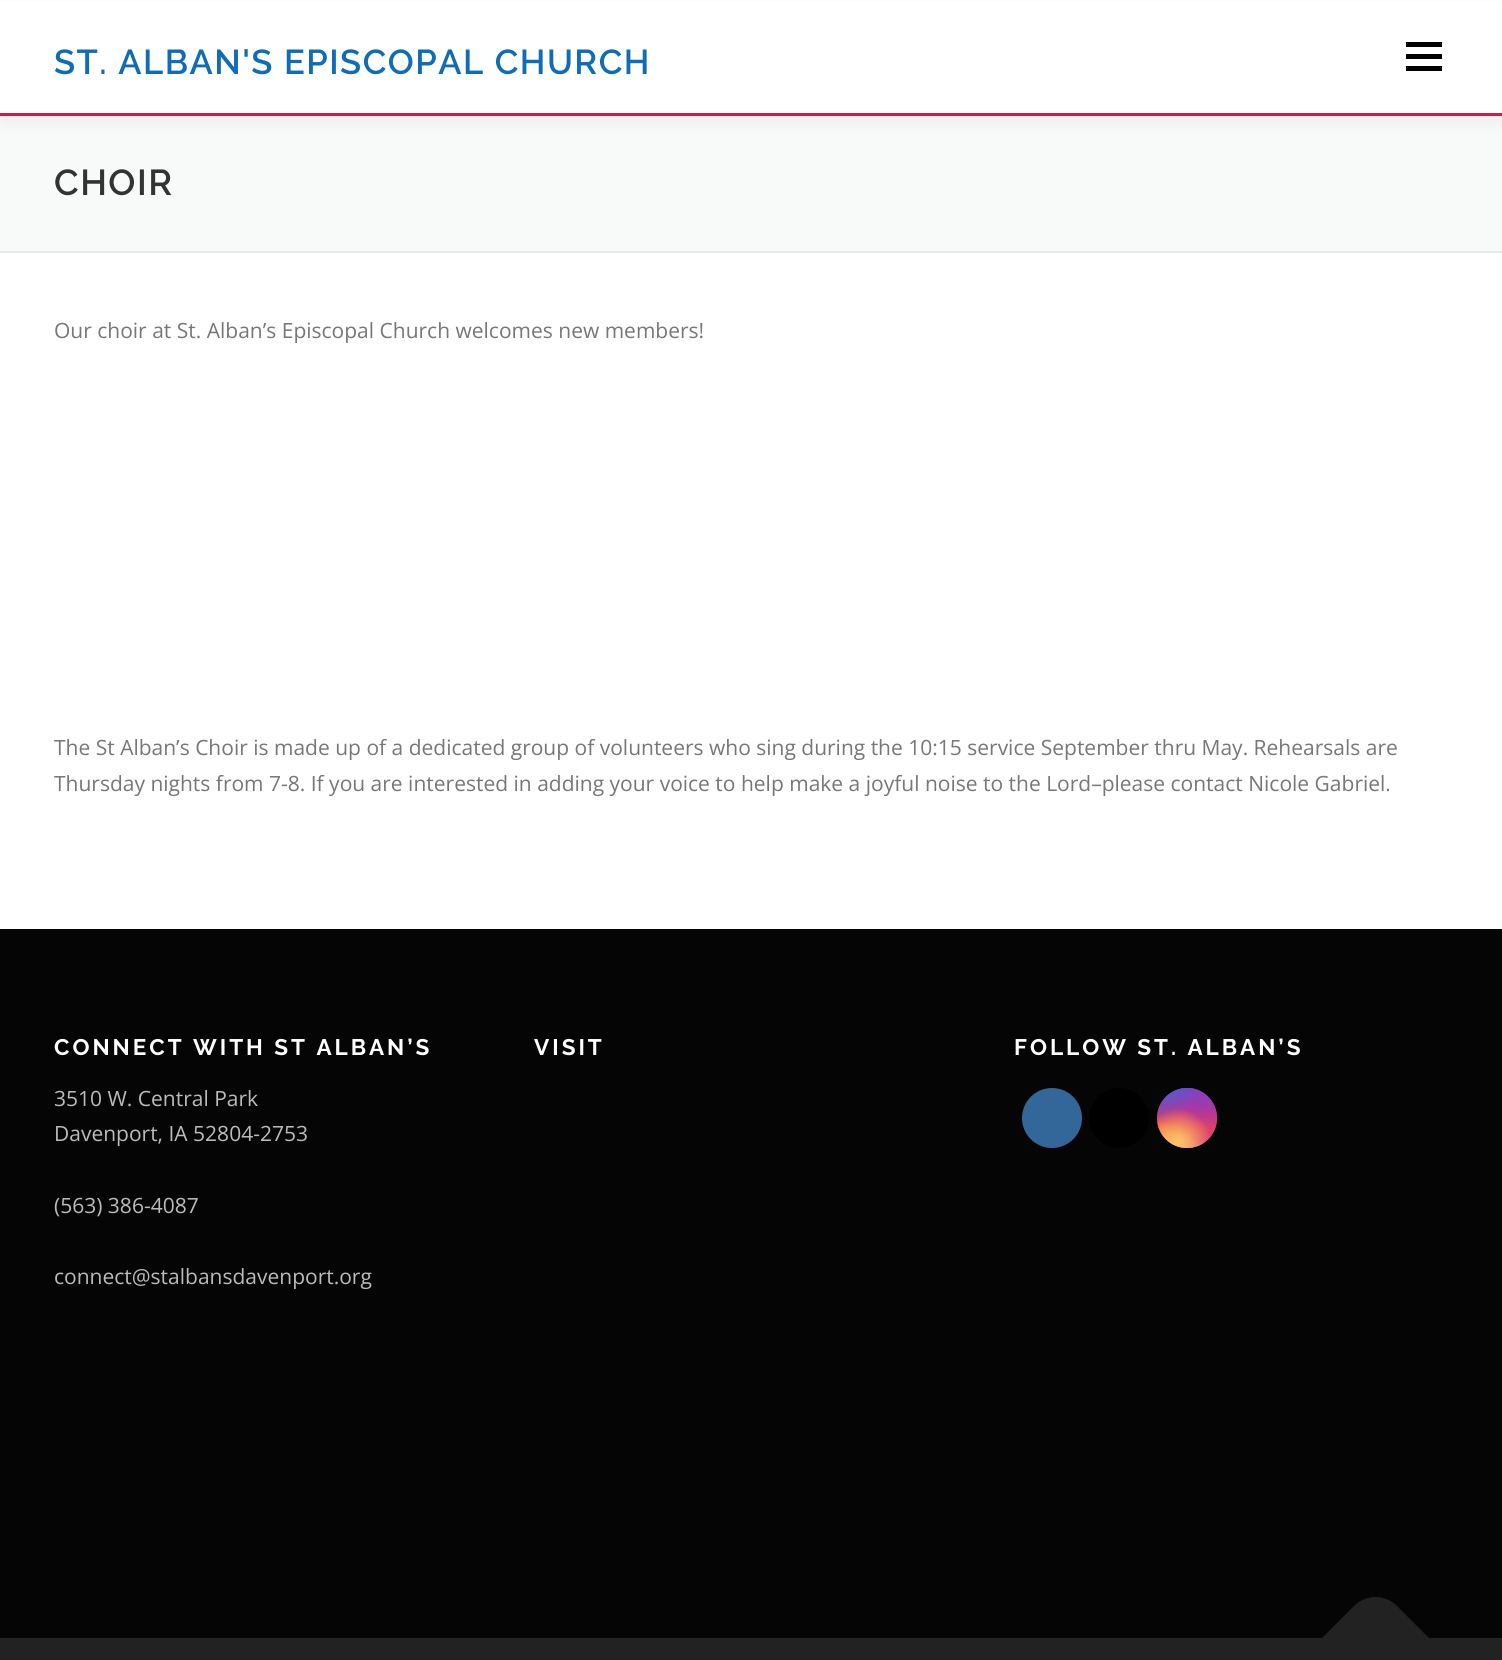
#include <cairo.h>
#include <math.h>
#include <stddef.h>

static cairo_t *ctx;

static void use_color(int r, int g, int b) {
    cairo_set_source_rgb(ctx, r / 255.0, g / 255.0, b / 255.0);
}

static void spaced_text(double x, double y, const char *s, double letter, double word) {
    cairo_move_to(ctx, x, y);
    while (*s) {
        char ch[5] = {0};
        int n = 0;
        do ch[n++] = *s++; while ((*s & 0xC0) == 0x80);
        cairo_show_text(ctx, ch);
        cairo_rel_move_to(ctx, letter + word * (*ch == ' '), 0);
    }
}

static void round_rect(double x, double y, double w, double h, double r) {
    cairo_new_sub_path(ctx);
    cairo_arc(ctx, x + w - r, y + h - r, r, 0, M_PI / 2);
    cairo_arc(ctx, x + r, y + h - r, r, M_PI / 2, M_PI);
    cairo_arc(ctx, x + r, y + r, r, M_PI, 1.5 * M_PI);
    cairo_arc(ctx, x + w - r, y + r, r, 1.5 * M_PI, 2 * M_PI);
    cairo_close_path(ctx);
}

static void shadow(double x, double y, double w, double h, double r, double blur, double alpha) {
    cairo_push_group_with_content(ctx, CAIRO_CONTENT_ALPHA);
    cairo_set_operator(ctx, CAIRO_OPERATOR_SOURCE);
    for (int i = 15; i >= -15 && fmin(w, h) + blur * i / 3 > 0; i -= 2) {
        double e = blur * i / 6;
        cairo_set_source_rgba(ctx, 0, 0, 0, alpha * erfc((i - 1) / 8.5) / 2);
        round_rect(x - e, y - e, w + 2 * e, h + 2 * e, fmax(0, fmin(r + e + blur * .6, fmin(w, h) / 2 + e)));
        cairo_fill(ctx);
    }
    cairo_pattern_t *soft = cairo_pop_group(ctx);
    cairo_mask(ctx, soft);
    cairo_pattern_destroy(soft);
}

int main(void) {
    cairo_surface_t *surface = cairo_image_surface_create(CAIRO_FORMAT_RGB24, 1502, 1660);
    ctx = cairo_create(surface);
    cairo_font_options_t *options = cairo_font_options_create();
    cairo_font_options_set_hint_metrics(options, CAIRO_HINT_METRICS_OFF);
    cairo_font_options_set_hint_style(options, CAIRO_HINT_STYLE_NONE);
    cairo_set_font_options(ctx, options);
    cairo_set_miter_limit(ctx, 4);
    cairo_pattern_t *gradient;
    use_color(255, 255, 255);
    cairo_paint(ctx);
    use_color(248, 249, 249);
    cairo_rectangle(ctx, 0, 116, 1502, 135);
    cairo_fill(ctx);
    use_color(50, 50, 50);
    shadow(0, 8, 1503, 115, 0, 7.5, 0.06);
    use_color(255, 255, 255);
    cairo_rectangle(ctx, 0, 2, 1502, 111);
    cairo_fill(ctx);
    use_color(199, 31, 62);
    cairo_rectangle(ctx, 0, 113, 1502, 3);
    cairo_fill(ctx);
    cairo_select_font_face(ctx, "Raleway SemiBold", CAIRO_FONT_SLANT_NORMAL, CAIRO_FONT_WEIGHT_NORMAL);
    cairo_set_font_size(ctx, 34.5);
    use_color(15, 108, 182);
    spaced_text(54, 74, "ST. ALBAN'S EPISCOPAL CHURCH", 1.5, 0);
    use_color(0, 0, 0);
    cairo_rectangle(ctx, 1406, 54, 36, 5);
    cairo_fill(ctx);
    cairo_rectangle(ctx, 1406, 42, 36, 5);
    cairo_fill(ctx);
    cairo_rectangle(ctx, 1406, 66, 36, 5);
    cairo_fill(ctx);
    use_color(233, 233, 233);
    cairo_rectangle(ctx, 0, 251, 1502, 2);
    cairo_fill(ctx);
    cairo_set_font_size(ctx, 36);
    use_color(51, 51, 51);
    spaced_text(54, 195, "CHOIR", 1.5, 0);
    cairo_select_font_face(ctx, "Open Sans", CAIRO_FONT_SLANT_NORMAL, CAIRO_FONT_WEIGHT_NORMAL);
    cairo_set_font_size(ctx, 21);
    use_color(119, 119, 119);
    cairo_move_to(ctx, 54, 338);
    cairo_show_text(ctx, "Our choir at St. Alban’s Episcopal Church welcomes new members!");
    cairo_move_to(ctx, 54, 755);
    cairo_show_text(ctx, "The St Alban’s Choir is made up of a dedicated group of volunteers who sing during the 10:15 service September thru May. Rehearsals are");
    cairo_move_to(ctx, 54, 791);
    cairo_show_text(ctx, "Thursday nights from 7-8. If you are interested in adding your voice to help make a joyful noise to the Lord–please contact Nicole Gabriel.");
    use_color(5, 5, 5);
    cairo_rectangle(ctx, 0, 929, 1502, 709);
    cairo_fill(ctx);
    cairo_select_font_face(ctx, "Raleway", CAIRO_FONT_SLANT_NORMAL, CAIRO_FONT_WEIGHT_BOLD);
    cairo_set_font_size(ctx, 22.5);
    use_color(255, 255, 255);
    spaced_text(54, 1055, "CONNECT WITH ST ALBAN’S", 3, 0);
    cairo_select_font_face(ctx, "Open Sans", CAIRO_FONT_SLANT_NORMAL, CAIRO_FONT_WEIGHT_NORMAL);
    cairo_set_font_size(ctx, 21);
    use_color(187, 187, 187);
    cairo_move_to(ctx, 54, 1106);
    cairo_show_text(ctx, "3510 W. Central Park");
    cairo_move_to(ctx, 54, 1141);
    cairo_show_text(ctx, "Davenport, IA 52804-2753");
    cairo_move_to(ctx, 54, 1213);
    cairo_show_text(ctx, "(563) 386-4087");
    cairo_move_to(ctx, 54, 1284);
    cairo_show_text(ctx, "connect@stalbansdavenport.org");
    cairo_select_font_face(ctx, "Raleway", CAIRO_FONT_SLANT_NORMAL, CAIRO_FONT_WEIGHT_BOLD);
    cairo_set_font_size(ctx, 22.5);
    use_color(255, 255, 255);
    spaced_text(534, 1055, "VISIT", 3, 0);
    spaced_text(1014, 1055, "FOLLOW ST. ALBAN’S", 3, 0);
    use_color(51, 102, 153);
    cairo_new_path(ctx);
    cairo_arc(ctx, 1052, 1118, 30, 0, 2 * M_PI);
    cairo_fill(ctx);
    use_color(0, 0, 0);
    cairo_arc(ctx, 1119, 1118, 30, 0, 2 * M_PI);
    cairo_fill(ctx);
    gradient = cairo_pattern_create_linear(1187, 1088, 1187, 1148);
    cairo_pattern_add_color_stop_rgba(gradient, 0, 0.396, 0.349, 0.792, 1);
    cairo_pattern_add_color_stop_rgba(gradient, 0.3, 0.737, 0.192, 0.561, 1);
    cairo_pattern_add_color_stop_rgba(gradient, 0.5, 0.89, 0.247, 0.373, 1);
    cairo_pattern_add_color_stop_rgba(gradient, 0.7, 0.969, 0.463, 0.22, 1);
    cairo_pattern_add_color_stop_rgba(gradient, 1, 0.996, 0.776, 0.427, 1);
    cairo_set_source(ctx, gradient);
    cairo_pattern_destroy(gradient);
    cairo_arc(ctx, 1187, 1118, 30, 0, 2 * M_PI);
    cairo_fill(ctx);
    gradient = cairo_pattern_create_radial(1217, 1148, 0, 1217, 1148, 85);
    cairo_pattern_add_color_stop_rgba(gradient, 0, 0.851, 0.192, 0.478, 1);
    cairo_pattern_add_color_stop_rgba(gradient, 1, 0.851, 0.192, 0.478, 0);
    cairo_set_source(ctx, gradient);
    cairo_pattern_destroy(gradient);
    cairo_arc(ctx, 1187, 1118, 30, 0, 2 * M_PI);
    cairo_fill(ctx);
    gradient = cairo_pattern_create_radial(0, 0, 0, 0, 0, 1);
    cairo_pattern_set_matrix(gradient, &(cairo_matrix_t){1.0 / 51, 0, 0, 1.0 / 102, -1.0 * 1193 / 51, -1.0 * 1076 / 102});
    cairo_pattern_add_color_stop_rgba(gradient, 0, 0.537, 0.239, 0.761, 1);
    cairo_pattern_add_color_stop_rgba(gradient, 0.5, 0.537, 0.239, 0.761, 0);
    cairo_set_source(ctx, gradient);
    cairo_pattern_destroy(gradient);
    cairo_arc(ctx, 1187, 1118, 30, 0, 2 * M_PI);
    cairo_fill(ctx);
    gradient = cairo_pattern_create_radial(1217, 1088, 0, 1217, 1088, 85);
    cairo_pattern_add_color_stop_rgba(gradient, 0, 0.537, 0.239, 0.761, 1);
    cairo_pattern_add_color_stop_rgba(gradient, 0.5, 0.537, 0.239, 0.761, 0);
    cairo_set_source(ctx, gradient);
    cairo_pattern_destroy(gradient);
    cairo_arc(ctx, 1187, 1118, 30, 0, 2 * M_PI);
    cairo_fill(ctx);
    gradient = cairo_pattern_create_radial(0, 0, 0, 0, 0, 1);
    cairo_pattern_set_matrix(gradient, &(cairo_matrix_t){1.0 / 68, 0, 0, 1.0 / 127, -1.0 * 1169 / 68, -1.0 * 1058 / 127});
    cairo_pattern_add_color_stop_rgba(gradient, 0, 0.322, 0.345, 0.812, 1);
    cairo_pattern_add_color_stop_rgba(gradient, 0.5, 0.322, 0.345, 0.812, 0);
    cairo_set_source(ctx, gradient);
    cairo_pattern_destroy(gradient);
    cairo_arc(ctx, 1187, 1118, 30, 0, 2 * M_PI);
    cairo_fill(ctx);
    gradient = cairo_pattern_create_radial(0, 0, 0, 0, 0, 1);
    cairo_pattern_set_matrix(gradient, &(cairo_matrix_t){1.0 / 85, 0, 0, 1.0 / 106, -1.0 * 1157 / 85, -1.0 * 1073 / 106});
    cairo_pattern_add_color_stop_rgba(gradient, 0, 0.322, 0.345, 0.812, 1);
    cairo_pattern_add_color_stop_rgba(gradient, 0.5, 0.322, 0.345, 0.812, 0);
    cairo_set_source(ctx, gradient);
    cairo_pattern_destroy(gradient);
    cairo_arc(ctx, 1187, 1118, 30, 0, 2 * M_PI);
    cairo_fill(ctx);
    gradient = cairo_pattern_create_radial(1157, 1172, 0, 1157, 1172, 103);
    cairo_pattern_add_color_stop_rgba(gradient, 0, 0.996, 0.773, 0.392, 1);
    cairo_pattern_add_color_stop_rgba(gradient, 0.5, 0.996, 0.773, 0.392, 0);
    cairo_set_source(ctx, gradient);
    cairo_pattern_destroy(gradient);
    cairo_arc(ctx, 1187, 1118, 30, 0, 2 * M_PI);
    cairo_fill(ctx);
    gradient = cairo_pattern_create_radial(1178, 1142, 0, 1178, 1142, 67);
    cairo_pattern_add_color_stop_rgba(gradient, 0, 0.996, 0.773, 0.392, 1);
    cairo_pattern_add_color_stop_rgba(gradient, 0.5, 0.996, 0.773, 0.392, 0);
    cairo_set_source(ctx, gradient);
    cairo_pattern_destroy(gradient);
    cairo_arc(ctx, 1187, 1118, 30, 0, 2 * M_PI);
    cairo_fill(ctx);
    use_color(34, 34, 34);
    cairo_rectangle(ctx, 0, 1638, 1502, 22);
    cairo_fill(ctx);
    cairo_new_path(ctx);
    cairo_move_to(ctx, 1322, 1638);
    cairo_line_to(ctx, 1354, 1606);
    cairo_curve_to(ctx, 1366, 1594, 1385, 1594, 1397, 1606);
    cairo_line_to(ctx, 1429, 1638);
    cairo_line_to(ctx, 1375, 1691);
    cairo_close_path(ctx);
    cairo_fill(ctx);
    cairo_surface_write_to_png(surface, "result.png");
    cairo_font_options_destroy(options);
    cairo_destroy(ctx);
    cairo_surface_destroy(surface);
    return 0;
}
